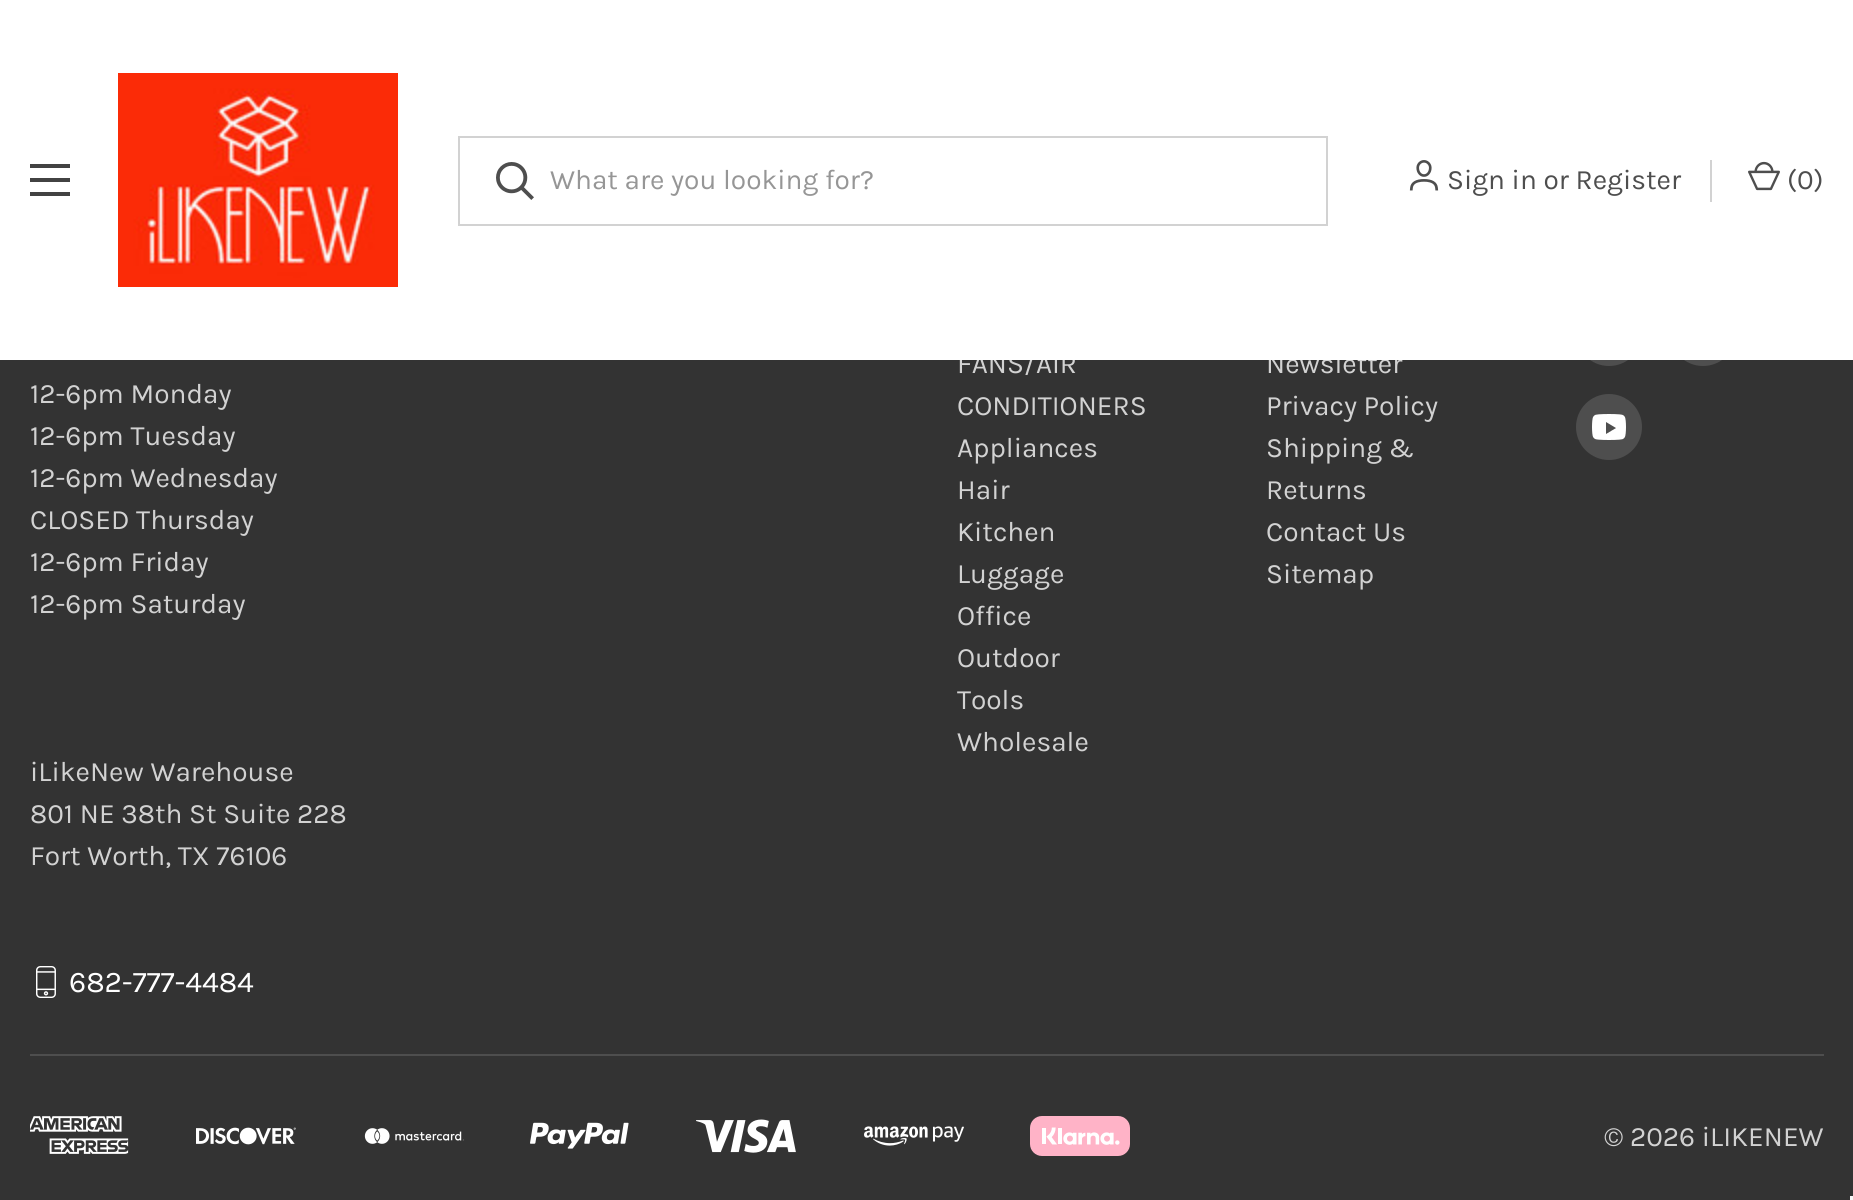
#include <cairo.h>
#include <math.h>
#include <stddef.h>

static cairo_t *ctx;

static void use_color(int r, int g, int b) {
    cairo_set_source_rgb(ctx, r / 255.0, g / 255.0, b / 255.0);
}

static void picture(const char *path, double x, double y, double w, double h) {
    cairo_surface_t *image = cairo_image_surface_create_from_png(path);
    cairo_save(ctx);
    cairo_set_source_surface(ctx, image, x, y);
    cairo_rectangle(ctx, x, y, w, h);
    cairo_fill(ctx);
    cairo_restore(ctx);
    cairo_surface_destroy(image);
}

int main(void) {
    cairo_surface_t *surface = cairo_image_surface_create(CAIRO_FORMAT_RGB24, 1853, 1200);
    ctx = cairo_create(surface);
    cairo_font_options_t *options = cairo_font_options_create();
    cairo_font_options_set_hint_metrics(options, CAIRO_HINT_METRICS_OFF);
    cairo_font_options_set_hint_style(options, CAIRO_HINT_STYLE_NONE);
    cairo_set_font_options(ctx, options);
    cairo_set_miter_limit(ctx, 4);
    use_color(51, 51, 51);
    cairo_paint(ctx);
    cairo_select_font_face(ctx, "Karla", CAIRO_FONT_SLANT_NORMAL, CAIRO_FONT_WEIGHT_NORMAL);
    cairo_set_font_size(ctx, 28);
    use_color(210, 210, 210);
    cairo_move_to(ctx, 957, 373);
    cairo_show_text(ctx, "FANS/AIR");
    cairo_move_to(ctx, 1266, 373);
    cairo_show_text(ctx, "Newsletter");
    use_color(78, 78, 78);
    cairo_new_path(ctx);
    cairo_arc(ctx, 1609, 333, 33, 0, 2 * M_PI);
    cairo_fill(ctx);
    cairo_arc(ctx, 1703, 333, 33, 0, 2 * M_PI);
    cairo_fill(ctx);
    use_color(255, 255, 255);
    cairo_rectangle(ctx, 0, 0, 1853, 360);
    cairo_fill(ctx);
    use_color(66, 66, 66);
    cairo_rectangle(ctx, 30, 178, 40, 4);
    cairo_fill(ctx);
    cairo_rectangle(ctx, 30, 164, 40, 4);
    cairo_fill(ctx);
    cairo_rectangle(ctx, 30, 192, 40, 4);
    cairo_fill(ctx);
    picture("img1.png", 118, 73, 280, 214);
    cairo_rectangle(ctx, 459, 137, 868, 88);
    use_color(210, 210, 210);
    cairo_stroke(ctx);
    picture("img2.png", 496, 162, 38, 38);
    use_color(150, 150, 150);
    cairo_move_to(ctx, 550, 189);
    cairo_show_text(ctx, "What are you looking for?");
    picture("img3.png", 1409, 160, 30, 31);
    use_color(78, 78, 78);
    cairo_move_to(ctx, 1447, 189);
    cairo_show_text(ctx, "Sign in or Register");
    use_color(210, 210, 210);
    cairo_rectangle(ctx, 1710, 160, 2, 42);
    cairo_fill(ctx);
    picture("img4.png", 1748, 161, 32, 30);
    use_color(78, 78, 78);
    cairo_move_to(ctx, 1787, 189);
    cairo_show_text(ctx, "(0)");
    use_color(210, 210, 210);
    cairo_move_to(ctx, 30, 403);
    cairo_show_text(ctx, "12-6pm Monday");
    cairo_move_to(ctx, 30, 445);
    cairo_show_text(ctx, "12-6pm Tuesday");
    cairo_move_to(ctx, 30, 487);
    cairo_show_text(ctx, "12-6pm Wednesday");
    cairo_move_to(ctx, 30, 529);
    cairo_show_text(ctx, "CLOSED Thursday");
    cairo_move_to(ctx, 30, 571);
    cairo_show_text(ctx, "12-6pm Friday");
    cairo_move_to(ctx, 30, 613);
    cairo_show_text(ctx, "12-6pm Saturday");
    cairo_move_to(ctx, 30, 781);
    cairo_show_text(ctx, "iLikeNew Warehouse");
    cairo_move_to(ctx, 30, 823);
    cairo_show_text(ctx, "801 NE 38th St Suite 228");
    cairo_move_to(ctx, 30, 865);
    cairo_show_text(ctx, "Fort Worth, TX 76106");
    picture("img5.png", 36, 966, 20, 32);
    cairo_set_font_size(ctx, 30);
    use_color(255, 255, 255);
    cairo_move_to(ctx, 69, 992);
    cairo_show_text(ctx, "682-777-4484");
    cairo_set_font_size(ctx, 28);
    use_color(210, 210, 210);
    cairo_move_to(ctx, 957, 415);
    cairo_show_text(ctx, "CONDITIONERS");
    cairo_move_to(ctx, 957, 457);
    cairo_show_text(ctx, "Appliances");
    cairo_move_to(ctx, 957, 499);
    cairo_show_text(ctx, "Hair");
    cairo_move_to(ctx, 957, 541);
    cairo_show_text(ctx, "Kitchen");
    cairo_move_to(ctx, 957, 583);
    cairo_show_text(ctx, "Luggage");
    cairo_move_to(ctx, 957, 625);
    cairo_show_text(ctx, "Office");
    cairo_move_to(ctx, 957, 667);
    cairo_show_text(ctx, "Outdoor");
    cairo_move_to(ctx, 957, 709);
    cairo_show_text(ctx, "Tools");
    cairo_move_to(ctx, 957, 751);
    cairo_show_text(ctx, "Wholesale");
    cairo_move_to(ctx, 1266, 415);
    cairo_show_text(ctx, "Privacy Policy");
    cairo_move_to(ctx, 1266, 457);
    cairo_show_text(ctx, "Shipping &");
    cairo_move_to(ctx, 1266, 499);
    cairo_show_text(ctx, "Returns");
    cairo_move_to(ctx, 1266, 541);
    cairo_show_text(ctx, "Contact Us");
    cairo_move_to(ctx, 1266, 583);
    cairo_show_text(ctx, "Sitemap");
    use_color(78, 78, 78);
    cairo_new_path(ctx);
    cairo_arc(ctx, 1609, 427, 33, 0, 2 * M_PI);
    cairo_fill(ctx);
    picture("img6.png", 1592, 414, 34, 26);
    cairo_rectangle(ctx, 30, 1054, 1794, 2);
    cairo_fill(ctx);
    picture("img7.png", 30, 1116, 99, 38);
    picture("img8.png", 196, 1127, 100, 18);
    picture("img9.png", 364, 1128, 100, 16);
    picture("img10.png", 530, 1122, 99, 27);
    picture("img11.png", 696, 1119, 100, 34);
    picture("img12.png", 864, 1126, 100, 20);
    picture("img13.png", 1030, 1116, 100, 40);
    use_color(210, 210, 210);
    cairo_move_to(ctx, 1604, 1146);
    cairo_show_text(ctx, "© 2026 iLIKENEW");
    use_color(245, 245, 245);
    cairo_rectangle(ctx, 1850, 1196, 3, 4);
    cairo_fill(ctx);
    cairo_surface_write_to_png(surface, "result.png");
    cairo_font_options_destroy(options);
    cairo_destroy(ctx);
    cairo_surface_destroy(surface);
    return 0;
}
